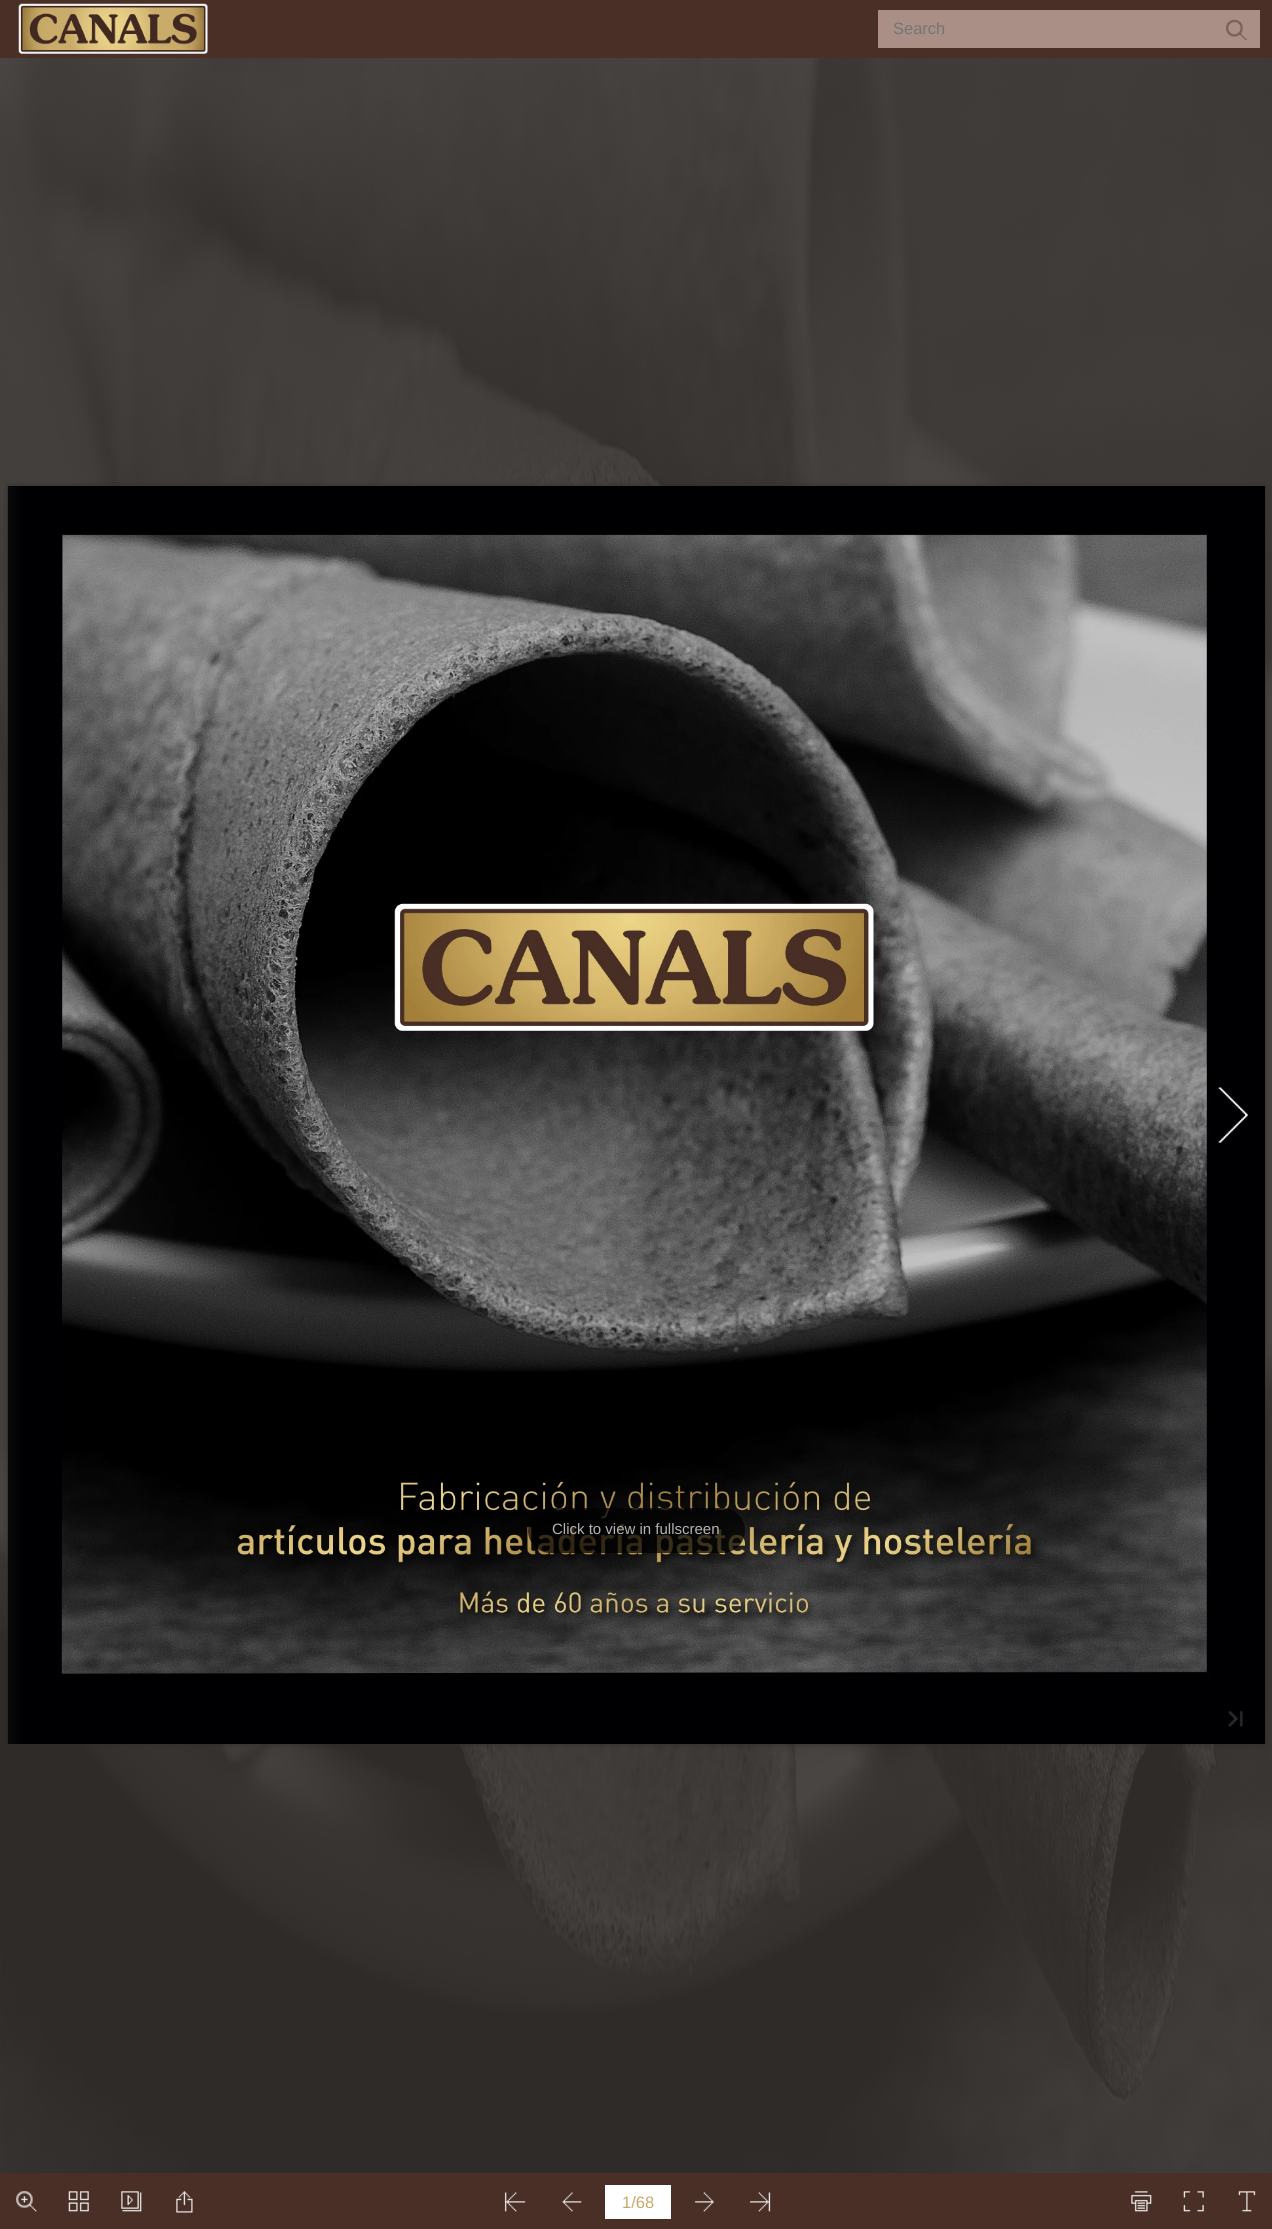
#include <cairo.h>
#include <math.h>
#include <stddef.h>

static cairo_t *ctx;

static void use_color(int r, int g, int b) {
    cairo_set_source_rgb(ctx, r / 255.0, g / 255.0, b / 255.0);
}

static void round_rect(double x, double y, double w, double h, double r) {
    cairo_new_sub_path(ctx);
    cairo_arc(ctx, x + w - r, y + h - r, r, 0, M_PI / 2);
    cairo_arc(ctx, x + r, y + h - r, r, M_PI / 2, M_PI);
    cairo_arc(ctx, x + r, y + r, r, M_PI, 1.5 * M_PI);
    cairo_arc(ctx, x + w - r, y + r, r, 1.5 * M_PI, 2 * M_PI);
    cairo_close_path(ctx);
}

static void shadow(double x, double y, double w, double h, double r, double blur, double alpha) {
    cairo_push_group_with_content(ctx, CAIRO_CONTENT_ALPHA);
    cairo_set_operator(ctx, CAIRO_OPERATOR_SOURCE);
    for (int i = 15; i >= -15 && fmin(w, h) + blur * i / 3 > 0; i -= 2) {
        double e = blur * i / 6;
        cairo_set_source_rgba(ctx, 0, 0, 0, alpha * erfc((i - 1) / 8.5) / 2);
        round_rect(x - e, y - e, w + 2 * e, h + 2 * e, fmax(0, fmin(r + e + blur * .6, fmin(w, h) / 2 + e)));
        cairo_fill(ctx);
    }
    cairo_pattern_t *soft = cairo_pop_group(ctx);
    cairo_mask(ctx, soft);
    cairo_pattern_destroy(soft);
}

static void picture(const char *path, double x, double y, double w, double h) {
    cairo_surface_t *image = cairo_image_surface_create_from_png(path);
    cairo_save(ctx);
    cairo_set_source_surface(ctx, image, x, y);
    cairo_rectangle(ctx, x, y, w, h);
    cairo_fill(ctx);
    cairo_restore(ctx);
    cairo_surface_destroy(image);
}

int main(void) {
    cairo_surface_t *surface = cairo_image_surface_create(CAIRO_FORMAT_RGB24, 1272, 2229);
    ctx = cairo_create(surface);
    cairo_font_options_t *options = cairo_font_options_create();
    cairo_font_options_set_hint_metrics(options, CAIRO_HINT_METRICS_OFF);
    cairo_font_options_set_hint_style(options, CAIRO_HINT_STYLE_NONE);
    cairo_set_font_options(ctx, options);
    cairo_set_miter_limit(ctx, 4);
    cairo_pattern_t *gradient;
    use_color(52, 48, 45);
    cairo_paint(ctx);
    use_color(73, 47, 38);
    cairo_rectangle(ctx, 0, 0, 1272, 58);
    cairo_fill(ctx);
    picture("img1.png", 18, 3, 190, 51);
    use_color(169, 143, 134);
    cairo_rectangle(ctx, 878, 10, 382, 38);
    cairo_fill(ctx);
    cairo_select_font_face(ctx, "Liberation Sans", CAIRO_FONT_SLANT_NORMAL, CAIRO_FONT_WEIGHT_NORMAL);
    cairo_set_font_size(ctx, 16.5);
    use_color(117, 117, 117);
    cairo_move_to(ctx, 893, 34);
    cairo_show_text(ctx, "Search");
    picture("img2.png", 1226, 19, 21, 22);
    picture("img3.png", 0, 58, 1272, 2115);
    use_color(40, 40, 40);
    shadow(8, 486, 1257, 1258, 0, 3, 0.7);
    picture("img6.png", 23, 486, 1242, 1258);
    picture("img4.png", 1218, 1087, 30, 56);
    picture("img5.png", 7, 486, 1, 1258);
    gradient = cairo_pattern_create_linear(7.5, 1115, 23, 1115);
    cairo_pattern_add_color_stop_rgba(gradient, 0, 0.039, 0.039, 0.043, 1);
    cairo_pattern_add_color_stop_rgba(gradient, 1, 0, 0, 0.008, 1);
    cairo_set_source(ctx, gradient);
    cairo_pattern_destroy(gradient);
    cairo_rectangle(ctx, 8, 486, 15, 1258);
    cairo_fill(ctx);
    cairo_set_source_rgba(ctx, 0, 0, 0, 0.7);
    round_rect(528, 1508, 217, 45, 22.5);
    cairo_fill(ctx);
    cairo_set_font_size(ctx, 15);
    use_color(181, 180, 180);
    cairo_move_to(ctx, 552, 1534);
    cairo_show_text(ctx, "Click to view in fullscreen");
    picture("img7.png", 1228, 1711, 15, 16);
    use_color(73, 47, 38);
    cairo_rectangle(ctx, 0, 2173, 1272, 56);
    cairo_fill(ctx);
    picture("img8.png", 16, 2191, 21, 21);
    picture("img9.png", 68, 2191, 21, 21);
    picture("img10.png", 121, 2191, 21, 21);
    picture("img11.png", 176, 2191, 17, 22);
    picture("img12.png", 504, 2192, 22, 20);
    picture("img13.png", 562, 2192, 20, 20);
    use_color(255, 255, 255);
    cairo_rectangle(ctx, 605, 2185, 66, 34);
    cairo_fill(ctx);
    cairo_set_font_size(ctx, 16.5);
    use_color(198, 168, 104);
    cairo_move_to(ctx, 622, 2208);
    cairo_show_text(ctx, "1/68");
    picture("img14.png", 694, 2192, 20, 20);
    picture("img15.png", 749, 2192, 22, 20);
    picture("img16.png", 1131, 2191, 21, 21);
    picture("img17.png", 1183, 2191, 21, 21);
    picture("img18.png", 1238, 2191, 18, 21);
    cairo_surface_write_to_png(surface, "result.png");
    cairo_font_options_destroy(options);
    cairo_destroy(ctx);
    cairo_surface_destroy(surface);
    return 0;
}
